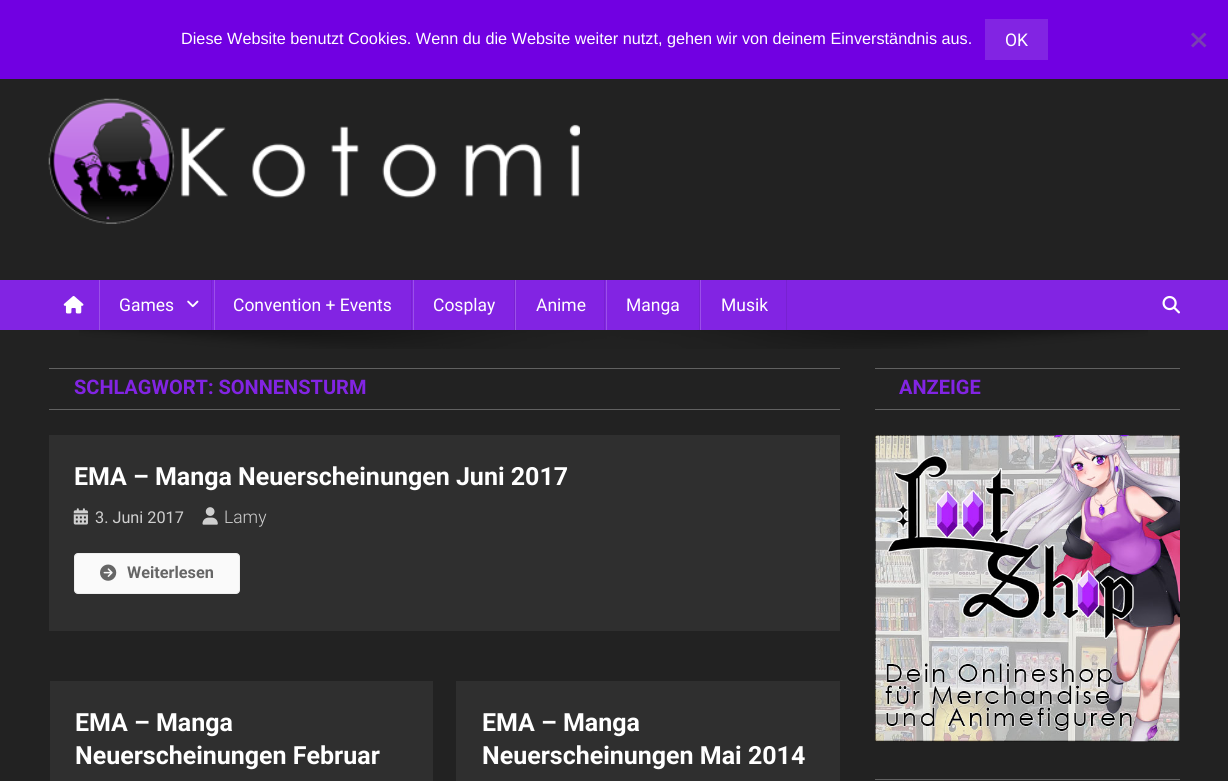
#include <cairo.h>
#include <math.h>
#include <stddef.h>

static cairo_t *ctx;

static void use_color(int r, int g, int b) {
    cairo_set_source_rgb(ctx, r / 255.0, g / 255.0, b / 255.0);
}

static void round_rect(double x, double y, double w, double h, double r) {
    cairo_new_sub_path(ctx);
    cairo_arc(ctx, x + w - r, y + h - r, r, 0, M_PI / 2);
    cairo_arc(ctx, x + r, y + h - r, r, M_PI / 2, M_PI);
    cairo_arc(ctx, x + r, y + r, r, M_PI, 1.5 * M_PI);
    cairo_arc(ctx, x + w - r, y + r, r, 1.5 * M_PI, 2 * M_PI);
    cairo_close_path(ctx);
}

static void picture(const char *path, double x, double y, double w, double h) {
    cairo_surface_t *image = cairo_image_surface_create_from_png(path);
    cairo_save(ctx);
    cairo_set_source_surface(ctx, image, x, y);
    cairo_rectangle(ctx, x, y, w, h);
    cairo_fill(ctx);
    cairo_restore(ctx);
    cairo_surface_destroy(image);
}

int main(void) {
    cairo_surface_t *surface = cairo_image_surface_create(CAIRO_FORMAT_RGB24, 1228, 781);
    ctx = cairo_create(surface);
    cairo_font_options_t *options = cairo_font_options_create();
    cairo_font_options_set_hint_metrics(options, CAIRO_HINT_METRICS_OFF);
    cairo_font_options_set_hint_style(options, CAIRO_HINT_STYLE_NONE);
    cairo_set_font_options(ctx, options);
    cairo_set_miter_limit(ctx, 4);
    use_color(34, 34, 34);
    cairo_paint(ctx);
    use_color(113, 0, 226);
    cairo_rectangle(ctx, 0, 0, 1228, 79);
    cairo_fill(ctx);
    cairo_select_font_face(ctx, "Liberation Sans", CAIRO_FONT_SLANT_NORMAL, CAIRO_FONT_WEIGHT_NORMAL);
    cairo_set_font_size(ctx, 16.25);
    use_color(255, 255, 255);
    cairo_move_to(ctx, 181, 44);
    cairo_show_text(ctx, "Diese Website benutzt Cookies. Wenn du die Website weiter nutzt, gehen wir von deinem Einverständnis aus.");
    use_color(130, 36, 227);
    cairo_rectangle(ctx, 985, 19, 63, 41);
    cairo_fill(ctx);
    cairo_select_font_face(ctx, "Roboto", CAIRO_FONT_SLANT_NORMAL, CAIRO_FONT_WEIGHT_NORMAL);
    cairo_set_font_size(ctx, 17.5);
    use_color(255, 255, 255);
    cairo_move_to(ctx, 1005, 46);
    cairo_show_text(ctx, "OK");
    use_color(121, 64, 177);
    cairo_new_path(ctx);
    cairo_move_to(ctx, 1204.5, 32.5);
    cairo_line_to(ctx, 1206.5, 34.5);
    cairo_line_to(ctx, 1193, 47.5);
    cairo_line_to(ctx, 1191, 45.5);
    cairo_close_path(ctx);
    cairo_fill(ctx);
    cairo_new_path(ctx);
    cairo_move_to(ctx, 1191, 34.5);
    cairo_line_to(ctx, 1193, 32.5);
    cairo_line_to(ctx, 1206.5, 45.5);
    cairo_line_to(ctx, 1204.5, 47.5);
    cairo_close_path(ctx);
    cairo_fill(ctx);
    picture("img1.png", 48, 98, 532, 126);
    use_color(130, 36, 227);
    cairo_rectangle(ctx, 0, 280, 1228, 50);
    cairo_fill(ctx);
    picture("img2.png", 63, 296, 21, 18);
    use_color(120, 33, 209);
    cairo_rectangle(ctx, 211, 280, 1, 50);
    cairo_fill(ctx);
    use_color(155, 80, 233);
    cairo_rectangle(ctx, 99, 280, 1, 50);
    cairo_fill(ctx);
    use_color(255, 255, 255);
    cairo_move_to(ctx, 119, 311);
    cairo_show_text(ctx, "Games");
    picture("img3.png", 187, 300, 12, 8);
    use_color(120, 33, 209);
    cairo_rectangle(ctx, 411, 280, 1, 50);
    cairo_fill(ctx);
    use_color(155, 80, 233);
    cairo_rectangle(ctx, 214, 280, 1, 50);
    cairo_fill(ctx);
    use_color(255, 255, 255);
    cairo_move_to(ctx, 233, 311);
    cairo_show_text(ctx, "Convention + Events");
    use_color(120, 33, 209);
    cairo_rectangle(ctx, 514, 280, 1, 50);
    cairo_fill(ctx);
    use_color(155, 80, 233);
    cairo_rectangle(ctx, 413, 280, 1, 50);
    cairo_fill(ctx);
    use_color(255, 255, 255);
    cairo_move_to(ctx, 433, 311);
    cairo_show_text(ctx, "Cosplay");
    use_color(120, 33, 209);
    cairo_rectangle(ctx, 604, 280, 1, 50);
    cairo_fill(ctx);
    use_color(155, 80, 233);
    cairo_rectangle(ctx, 515, 280, 1, 50);
    cairo_fill(ctx);
    use_color(255, 255, 255);
    cairo_move_to(ctx, 536, 311);
    cairo_show_text(ctx, "Anime");
    use_color(120, 33, 209);
    cairo_rectangle(ctx, 699, 280, 1, 50);
    cairo_fill(ctx);
    use_color(155, 80, 233);
    cairo_rectangle(ctx, 606, 280, 1, 50);
    cairo_fill(ctx);
    use_color(255, 255, 255);
    cairo_move_to(ctx, 626, 311);
    cairo_show_text(ctx, "Manga");
    use_color(120, 33, 209);
    cairo_rectangle(ctx, 786, 280, 1, 50);
    cairo_fill(ctx);
    use_color(155, 80, 233);
    cairo_rectangle(ctx, 700, 280, 1, 50);
    cairo_fill(ctx);
    use_color(255, 255, 255);
    cairo_move_to(ctx, 721, 311);
    cairo_show_text(ctx, "Musik");
    picture("img4.png", 1162, 295, 18, 19);
    picture("img5.png", 79, 330, 1069, 19);
    use_color(97, 97, 97);
    cairo_rectangle(ctx, 49, 368, 791, 1);
    cairo_fill(ctx);
    cairo_rectangle(ctx, 49, 409, 791, 1);
    cairo_fill(ctx);
    cairo_select_font_face(ctx, "Roboto", CAIRO_FONT_SLANT_NORMAL, CAIRO_FONT_WEIGHT_BOLD);
    cairo_set_font_size(ctx, 20);
    use_color(130, 36, 227);
    cairo_move_to(ctx, 74, 394);
    cairo_show_text(ctx, "SCHLAGWORT: SONNENSTURM");
    use_color(47, 47, 47);
    cairo_rectangle(ctx, 49, 435, 791, 196);
    cairo_fill(ctx);
    cairo_set_font_size(ctx, 25);
    use_color(255, 255, 255);
    cairo_move_to(ctx, 74, 485);
    cairo_show_text(ctx, "EMA – Manga Neuerscheinungen Juni 2017");
    picture("img6.png", 73, 508, 15, 17);
    cairo_select_font_face(ctx, "Roboto", CAIRO_FONT_SLANT_NORMAL, CAIRO_FONT_WEIGHT_NORMAL);
    cairo_set_font_size(ctx, 16.25);
    use_color(207, 207, 207);
    cairo_move_to(ctx, 95, 523);
    cairo_show_text(ctx, "3. Juni 2017");
    picture("img7.png", 202, 507, 16, 18);
    cairo_select_font_face(ctx, "Roboto Light", CAIRO_FONT_SLANT_NORMAL, CAIRO_FONT_WEIGHT_NORMAL);
    cairo_set_font_size(ctx, 17.5);
    cairo_move_to(ctx, 224, 523);
    cairo_show_text(ctx, "Lamy");
    use_color(250, 250, 250);
    round_rect(74.5, 553.5, 165, 40, 3.5);
    cairo_fill_preserve(ctx);
    use_color(238, 238, 238);
    cairo_set_line_width(ctx, 1);
    cairo_stroke(ctx);
    picture("img8.png", 100, 564, 17, 17);
    cairo_select_font_face(ctx, "Roboto", CAIRO_FONT_SLANT_NORMAL, CAIRO_FONT_WEIGHT_BOLD);
    cairo_set_font_size(ctx, 16.25);
    use_color(102, 102, 102);
    cairo_move_to(ctx, 127, 578);
    cairo_show_text(ctx, "Weiterlesen");
    use_color(47, 47, 47);
    cairo_rectangle(ctx, 50, 681, 383, 100);
    cairo_fill(ctx);
    cairo_set_font_size(ctx, 25);
    use_color(255, 255, 255);
    cairo_move_to(ctx, 75, 731);
    cairo_show_text(ctx, "EMA – Manga");
    cairo_move_to(ctx, 75, 764);
    cairo_show_text(ctx, "Neuerscheinungen Februar");
    use_color(47, 47, 47);
    cairo_rectangle(ctx, 456, 681, 384, 100);
    cairo_fill(ctx);
    use_color(255, 255, 255);
    cairo_move_to(ctx, 482, 731);
    cairo_show_text(ctx, "EMA – Manga");
    cairo_move_to(ctx, 482, 764);
    cairo_show_text(ctx, "Neuerscheinungen Mai 2014");
    use_color(97, 97, 97);
    cairo_rectangle(ctx, 875, 368, 305, 1);
    cairo_fill(ctx);
    cairo_rectangle(ctx, 875, 409, 305, 1);
    cairo_fill(ctx);
    cairo_set_font_size(ctx, 20);
    use_color(130, 36, 227);
    cairo_move_to(ctx, 899, 394);
    cairo_show_text(ctx, "ANZEIGE");
    picture("img9.png", 875, 435, 305, 307);
    use_color(97, 97, 97);
    cairo_rectangle(ctx, 875, 779, 305, 1);
    cairo_fill(ctx);
    cairo_surface_write_to_png(surface, "result.png");
    cairo_font_options_destroy(options);
    cairo_destroy(ctx);
    cairo_surface_destroy(surface);
    return 0;
}
